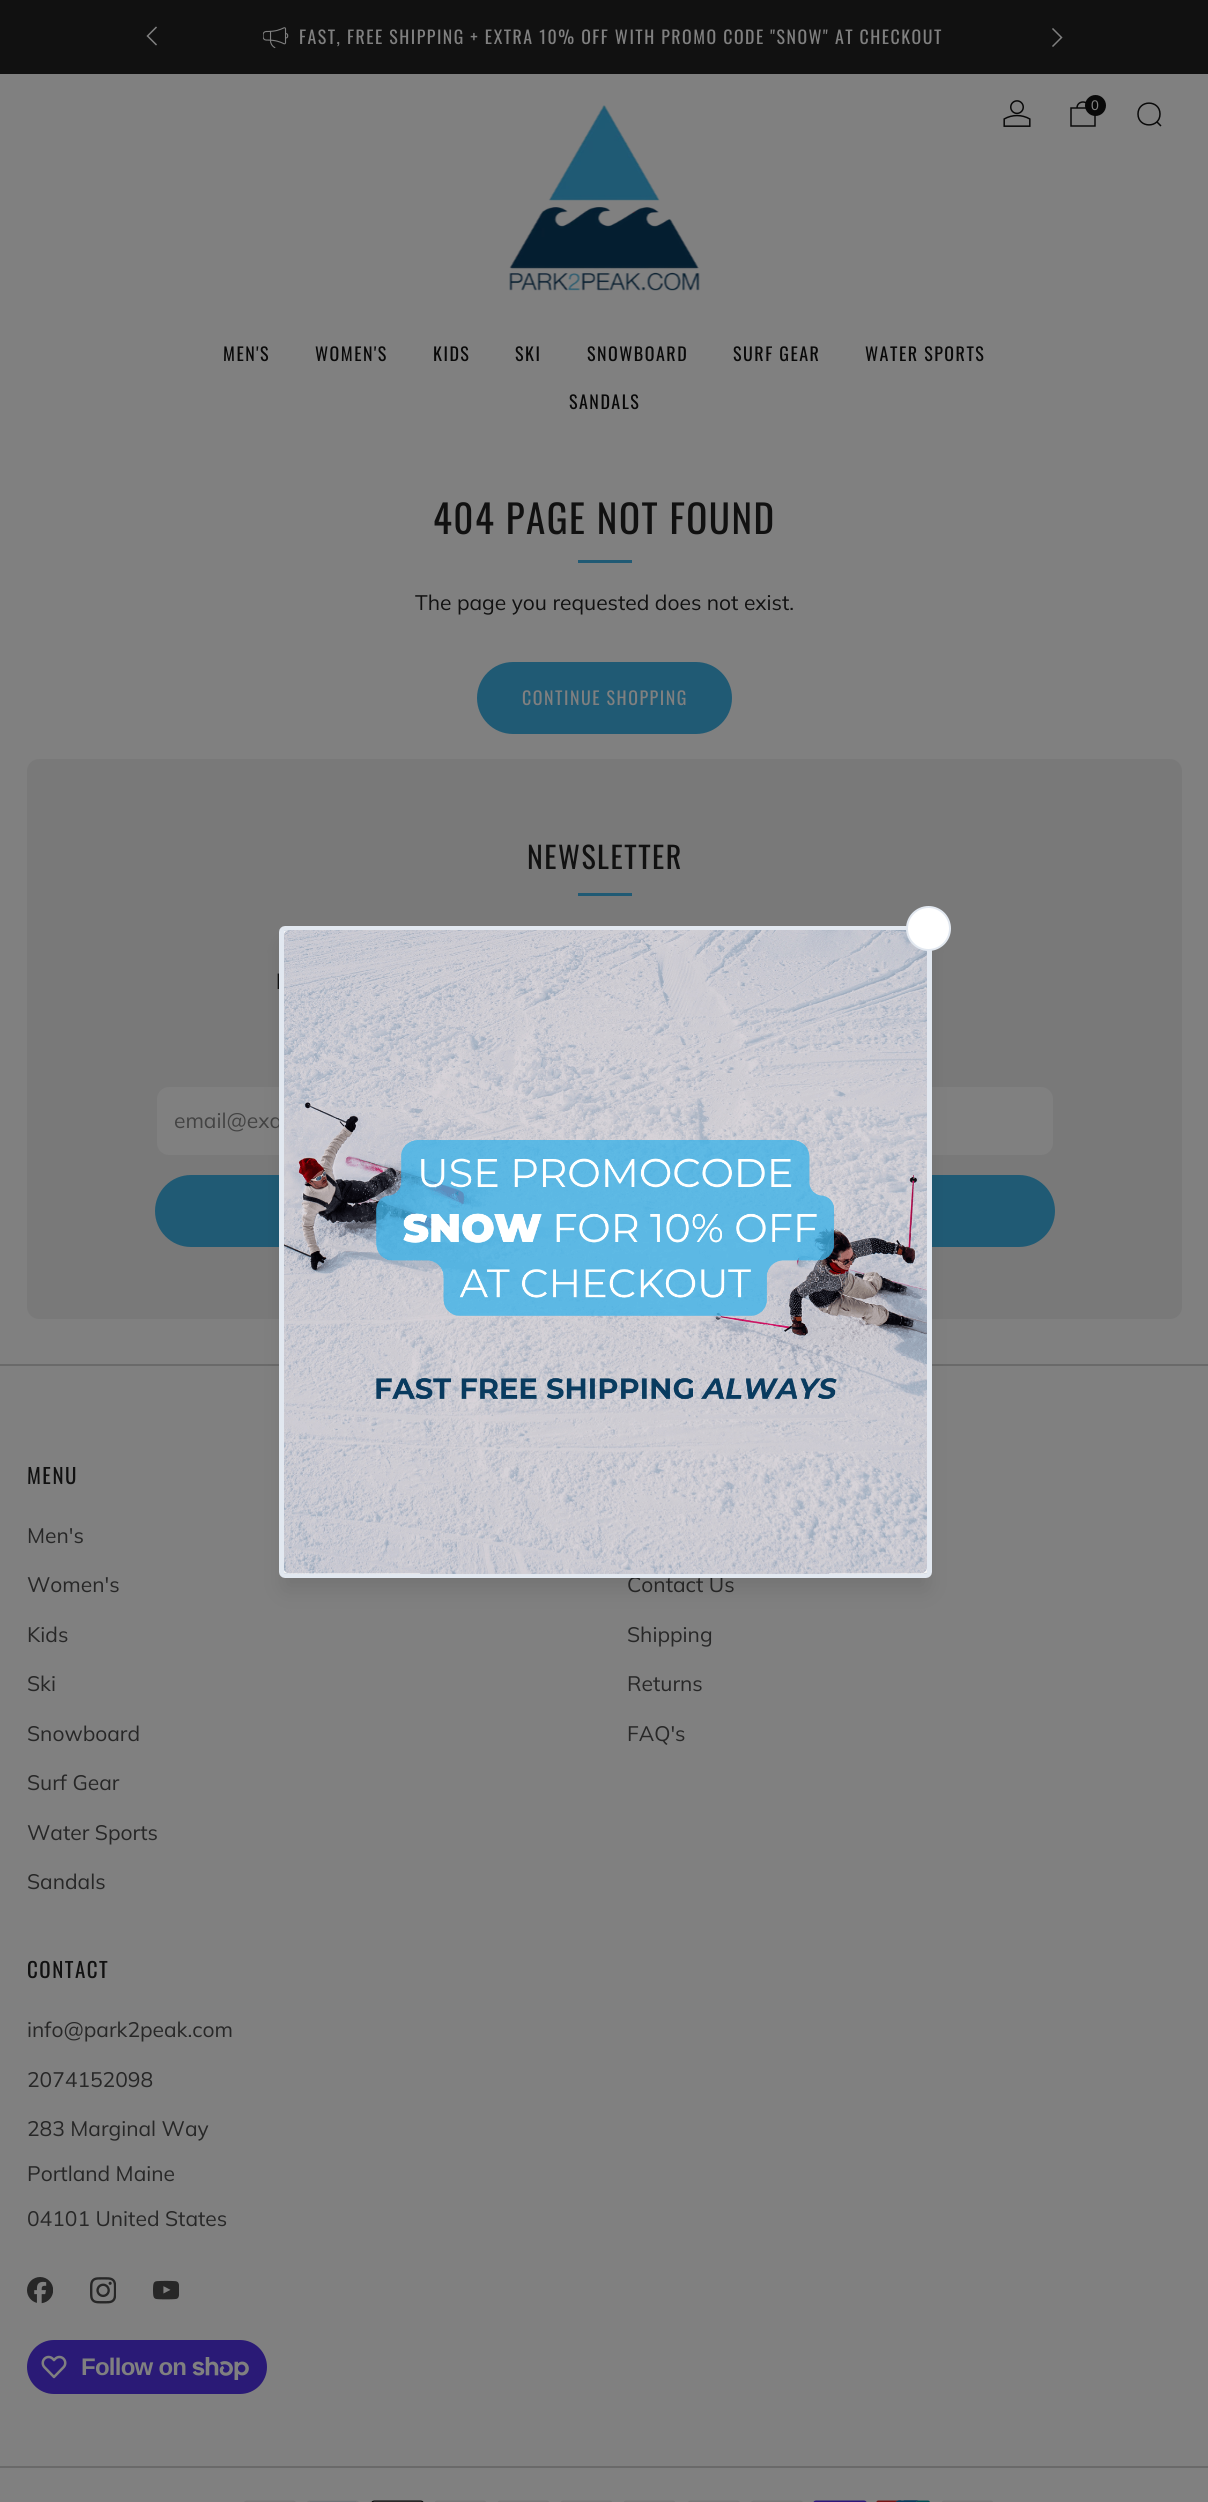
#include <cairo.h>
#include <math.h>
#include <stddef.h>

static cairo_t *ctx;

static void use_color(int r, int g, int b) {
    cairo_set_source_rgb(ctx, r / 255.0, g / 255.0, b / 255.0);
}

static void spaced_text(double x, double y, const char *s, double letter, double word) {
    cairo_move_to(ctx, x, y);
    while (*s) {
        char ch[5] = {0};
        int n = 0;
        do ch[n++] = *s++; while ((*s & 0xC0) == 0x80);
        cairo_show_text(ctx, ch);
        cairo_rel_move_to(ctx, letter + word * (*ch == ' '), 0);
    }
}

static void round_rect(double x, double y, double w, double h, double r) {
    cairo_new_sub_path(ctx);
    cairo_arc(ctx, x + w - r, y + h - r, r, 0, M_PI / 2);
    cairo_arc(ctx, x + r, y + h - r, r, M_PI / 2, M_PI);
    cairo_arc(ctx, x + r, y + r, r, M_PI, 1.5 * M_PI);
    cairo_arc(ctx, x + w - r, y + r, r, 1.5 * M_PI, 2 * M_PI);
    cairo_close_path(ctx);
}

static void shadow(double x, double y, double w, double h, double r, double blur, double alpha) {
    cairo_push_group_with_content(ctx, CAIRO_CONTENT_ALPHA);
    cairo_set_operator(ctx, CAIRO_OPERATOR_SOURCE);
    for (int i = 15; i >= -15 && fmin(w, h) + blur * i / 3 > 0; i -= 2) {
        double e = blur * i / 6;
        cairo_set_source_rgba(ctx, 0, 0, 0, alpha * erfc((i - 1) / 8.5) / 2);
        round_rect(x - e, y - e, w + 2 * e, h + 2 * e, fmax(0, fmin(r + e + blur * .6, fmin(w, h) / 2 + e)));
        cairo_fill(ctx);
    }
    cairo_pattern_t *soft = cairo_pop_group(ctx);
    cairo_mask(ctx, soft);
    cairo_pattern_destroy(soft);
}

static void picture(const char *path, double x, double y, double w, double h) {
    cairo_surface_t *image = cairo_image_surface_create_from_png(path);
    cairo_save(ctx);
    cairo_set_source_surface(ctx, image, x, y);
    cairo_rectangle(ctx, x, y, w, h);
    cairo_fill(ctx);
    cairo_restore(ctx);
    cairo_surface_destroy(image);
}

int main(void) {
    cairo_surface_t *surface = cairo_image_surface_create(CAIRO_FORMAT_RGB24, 1208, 2502);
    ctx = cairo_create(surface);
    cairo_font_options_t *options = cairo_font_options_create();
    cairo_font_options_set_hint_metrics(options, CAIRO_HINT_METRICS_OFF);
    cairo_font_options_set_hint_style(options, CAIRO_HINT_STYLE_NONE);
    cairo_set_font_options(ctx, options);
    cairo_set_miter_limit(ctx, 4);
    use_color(128, 128, 128);
    cairo_paint(ctx);
    use_color(17, 17, 17);
    cairo_rectangle(ctx, 0, 0, 1208, 74);
    cairo_fill(ctx);
    cairo_new_path(ctx);
    cairo_move_to(ctx, 156, 44.5);
    cairo_line_to(ctx, 147.5, 36);
    cairo_line_to(ctx, 156, 27.5);
    use_color(128, 128, 128);
    cairo_set_line_width(ctx, 1.5);
    cairo_set_line_cap(ctx, CAIRO_LINE_CAP_SQUARE);
    cairo_stroke(ctx);
    picture("img1.png", 263, 27, 26, 22);
    cairo_select_font_face(ctx, "Oswald", CAIRO_FONT_SLANT_NORMAL, CAIRO_FONT_WEIGHT_NORMAL);
    cairo_set_font_size(ctx, 17.85);
    spaced_text(299, 44, "FAST, FREE SHIPPING + EXTRA 10% OFF WITH PROMO CODE \"SNOW\" AT CHECKOUT", 1.5, 0);
    cairo_new_path(ctx);
    cairo_move_to(ctx, 1053, 29);
    cairo_line_to(ctx, 1061.5, 37.5);
    cairo_line_to(ctx, 1053, 46);
    cairo_stroke(ctx);
    picture("img2.png", 1003, 100, 28, 27);
    cairo_new_path(ctx);
    cairo_move_to(ctx, 1089, 108);
    cairo_curve_to(ctx, 1089, 100, 1077, 100, 1077, 108);
    cairo_move_to(ctx, 1071, 108);
    cairo_line_to(ctx, 1095, 108);
    cairo_line_to(ctx, 1095, 126);
    cairo_line_to(ctx, 1071, 126);
    cairo_close_path(ctx);
    use_color(9, 9, 9);
    cairo_set_line_cap(ctx, CAIRO_LINE_CAP_BUTT);
    cairo_stroke(ctx);
    cairo_arc(ctx, 1095.5, 105.5, 10.5, 0, 2 * M_PI);
    cairo_fill(ctx);
    cairo_select_font_face(ctx, "Liberation Sans", CAIRO_FONT_SLANT_NORMAL, CAIRO_FONT_WEIGHT_NORMAL);
    cairo_set_font_size(ctx, 14);
    use_color(128, 128, 128);
    cairo_move_to(ctx, 1091, 110);
    cairo_show_text(ctx, "0");
    cairo_new_path(ctx);
    cairo_move_to(ctx, 1156.5, 121.5);
    cairo_line_to(ctx, 1161, 126);
    cairo_move_to(ctx, 1160, 114);
    cairo_curve_to(ctx, 1160, 128.5, 1138, 128.5, 1138, 114);
    cairo_curve_to(ctx, 1138, 99.5, 1160, 99.5, 1160, 114);
    cairo_close_path(ctx);
    use_color(9, 9, 9);
    cairo_stroke(ctx);
    cairo_select_font_face(ctx, "Oswald", CAIRO_FONT_SLANT_NORMAL, CAIRO_FONT_WEIGHT_NORMAL);
    cairo_set_font_size(ctx, 18);
    spaced_text(223, 361, "MEN'S", 1.5, 0);
    spaced_text(315, 361, "WOMEN'S", 1.5, 0);
    spaced_text(433, 361, "KIDS", 1.5, 0);
    spaced_text(515, 361, "SKI", 1.5, 0);
    spaced_text(587, 361, "SNOWBOARD", 1.5, 0);
    spaced_text(733, 361, "SURF GEAR", 1.5, 0);
    spaced_text(865, 361, "WATER SPORTS", 1.5, 0);
    spaced_text(569, 409, "SANDALS", 1.5, 0);
    picture("img3.png", 509, 105, 191, 186);
    cairo_set_font_size(ctx, 39);
    use_color(17, 17, 17);
    spaced_text(433, 534, "404 PAGE NOT FOUND", 1.5, 0);
    use_color(32, 90, 116);
    cairo_rectangle(ctx, 578, 560, 54, 3);
    cairo_fill(ctx);
    cairo_select_font_face(ctx, "Muli", CAIRO_FONT_SLANT_NORMAL, CAIRO_FONT_WEIGHT_NORMAL);
    cairo_set_font_size(ctx, 21);
    use_color(17, 17, 17);
    cairo_move_to(ctx, 415, 610);
    cairo_show_text(ctx, "The page you requested does not exist.");
    use_color(32, 90, 116);
    round_rect(477, 662, 255, 72, 36);
    cairo_fill(ctx);
    cairo_select_font_face(ctx, "Oswald", CAIRO_FONT_SLANT_NORMAL, CAIRO_FONT_WEIGHT_NORMAL);
    cairo_set_font_size(ctx, 18);
    use_color(128, 128, 128);
    spaced_text(522, 705, "CONTINUE SHOPPING", 1.5, 0);
    use_color(121, 121, 121);
    round_rect(27, 759, 1155, 560, 12);
    cairo_fill(ctx);
    cairo_set_font_size(ctx, 30);
    use_color(17, 17, 17);
    spaced_text(527, 869, "NEWSLETTER", 1.5, 0);
    use_color(32, 90, 116);
    cairo_rectangle(ctx, 578, 893, 54, 3);
    cairo_fill(ctx);
    cairo_select_font_face(ctx, "Muli", CAIRO_FONT_SLANT_NORMAL, CAIRO_FONT_WEIGHT_NORMAL);
    cairo_set_font_size(ctx, 21);
    use_color(17, 17, 17);
    cairo_move_to(ctx, 276, 989);
    cairo_show_text(ctx, "l");
    use_color(128, 128, 128);
    round_rect(156, 1086, 898, 70, 13);
    cairo_fill_preserve(ctx);
    use_color(121, 121, 121);
    cairo_set_line_width(ctx, 2);
    cairo_stroke(ctx);
    use_color(67, 67, 67);
    cairo_move_to(ctx, 174, 1128);
    cairo_show_text(ctx, "email@exa");
    use_color(32, 90, 116);
    round_rect(155, 1175, 900, 72, 36);
    cairo_fill(ctx);
    use_color(106, 106, 106);
    cairo_rectangle(ctx, 0, 1364, 1208, 2);
    cairo_fill(ctx);
    cairo_select_font_face(ctx, "Oswald", CAIRO_FONT_SLANT_NORMAL, CAIRO_FONT_WEIGHT_NORMAL);
    use_color(17, 17, 17);
    spaced_text(27, 1484, "MENU", 1.5, 0);
    cairo_select_font_face(ctx, "Muli", CAIRO_FONT_SLANT_NORMAL, CAIRO_FONT_WEIGHT_NORMAL);
    use_color(39, 39, 39);
    cairo_move_to(ctx, 27, 1543);
    cairo_show_text(ctx, "Men's");
    cairo_move_to(ctx, 27, 1592);
    cairo_show_text(ctx, "Women's");
    cairo_move_to(ctx, 27, 1642);
    cairo_show_text(ctx, "Kids");
    cairo_move_to(ctx, 27, 1691);
    cairo_show_text(ctx, "Ski");
    cairo_move_to(ctx, 27, 1741);
    cairo_show_text(ctx, "Snowboard");
    cairo_move_to(ctx, 27, 1790);
    cairo_show_text(ctx, "Surf Gear");
    cairo_move_to(ctx, 27, 1840);
    cairo_show_text(ctx, "Water Sports");
    cairo_move_to(ctx, 27, 1889);
    cairo_show_text(ctx, "Sandals");
    cairo_move_to(ctx, 627, 1592);
    cairo_show_text(ctx, "Contact Us");
    cairo_move_to(ctx, 627, 1642);
    cairo_show_text(ctx, "Shipping");
    cairo_move_to(ctx, 627, 1691);
    cairo_show_text(ctx, "Returns");
    cairo_move_to(ctx, 627, 1741);
    cairo_show_text(ctx, "FAQ's");
    cairo_select_font_face(ctx, "Oswald", CAIRO_FONT_SLANT_NORMAL, CAIRO_FONT_WEIGHT_NORMAL);
    use_color(17, 17, 17);
    spaced_text(27, 1978, "CONTACT", 1.5, 0);
    cairo_select_font_face(ctx, "Muli", CAIRO_FONT_SLANT_NORMAL, CAIRO_FONT_WEIGHT_NORMAL);
    use_color(39, 39, 39);
    cairo_move_to(ctx, 27, 2037);
    cairo_show_text(ctx, "info@park2peak.com");
    cairo_move_to(ctx, 27, 2087);
    cairo_show_text(ctx, "2074152098");
    cairo_move_to(ctx, 27, 2136);
    cairo_show_text(ctx, "283 Marginal Way");
    cairo_move_to(ctx, 27, 2181);
    cairo_show_text(ctx, "Portland Maine");
    cairo_move_to(ctx, 27, 2226);
    cairo_show_text(ctx, "04101 United States");
    picture("img4.png", 27, 2277, 26, 27);
    picture("img5.png", 90, 2277, 26, 27);
    picture("img6.png", 153, 2280, 26, 20);
    use_color(42, 26, 118);
    round_rect(27, 2340, 240, 54, 27);
    cairo_fill(ctx);
    picture("img7.png", 41, 2355, 26, 24);
    cairo_select_font_face(ctx, "Liberation Sans", CAIRO_FONT_SLANT_NORMAL, CAIRO_FONT_WEIGHT_BOLD);
    cairo_set_font_size(ctx, 24);
    use_color(128, 128, 128);
    spaced_text(81, 2375, "Follow on", -0.75, 0);
    picture("img8.png", 192, 2357, 57, 23);
    use_color(106, 106, 106);
    cairo_rectangle(ctx, 0, 2466, 1208, 2);
    cairo_fill(ctx);
    picture("img9.png", 244, 2500, 52, 2);
    picture("img10.png", 307, 2500, 52, 2);
    picture("img11.png", 371, 2500, 53, 2);
    picture("img12.png", 435, 2500, 51, 2);
    picture("img12.png", 498, 2500, 51, 2);
    picture("img12.png", 561, 2500, 51, 2);
    picture("img12.png", 624, 2500, 51, 2);
    picture("img9.png", 688, 2500, 52, 2);
    picture("img9.png", 751, 2500, 52, 2);
    picture("img13.png", 813, 2500, 54, 2);
    picture("img14.png", 876, 2500, 54, 2);
    picture("img12.png", 942, 2500, 51, 2);
    use_color(0, 0, 0);
    shadow(284, 945, 643, 644, 1.5, 11, 0.1);
    use_color(255, 255, 255);
    round_rect(281.5, 928.5, 648, 647, 3.5);
    cairo_fill_preserve(ctx);
    use_color(226, 232, 240);
    cairo_set_line_width(ctx, 5);
    cairo_stroke(ctx);
    cairo_save(ctx);
    cairo_rectangle(ctx, 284, 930, 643, 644);
    cairo_clip(ctx);
    use_color(0, 0, 0);
    shadow(287, 939, 637, 638, 3, 4.5, 0.05);
    shadow(288, 935, 635, 634, 1.5, 15, 0.12);
    cairo_restore(ctx);
    use_color(255, 255, 255);
    round_rect(284, 930, 643, 644, 6);
    cairo_fill(ctx);
    picture("img15.png", 284, 930, 643, 644);
    cairo_arc(ctx, 928.5, 928.5, 21.5, 0, 2 * M_PI);
    cairo_fill_preserve(ctx);
    use_color(226, 232, 240);
    cairo_set_line_width(ctx, 2);
    cairo_stroke(ctx);
    cairo_surface_write_to_png(surface, "result.png");
    cairo_font_options_destroy(options);
    cairo_destroy(ctx);
    cairo_surface_destroy(surface);
    return 0;
}
